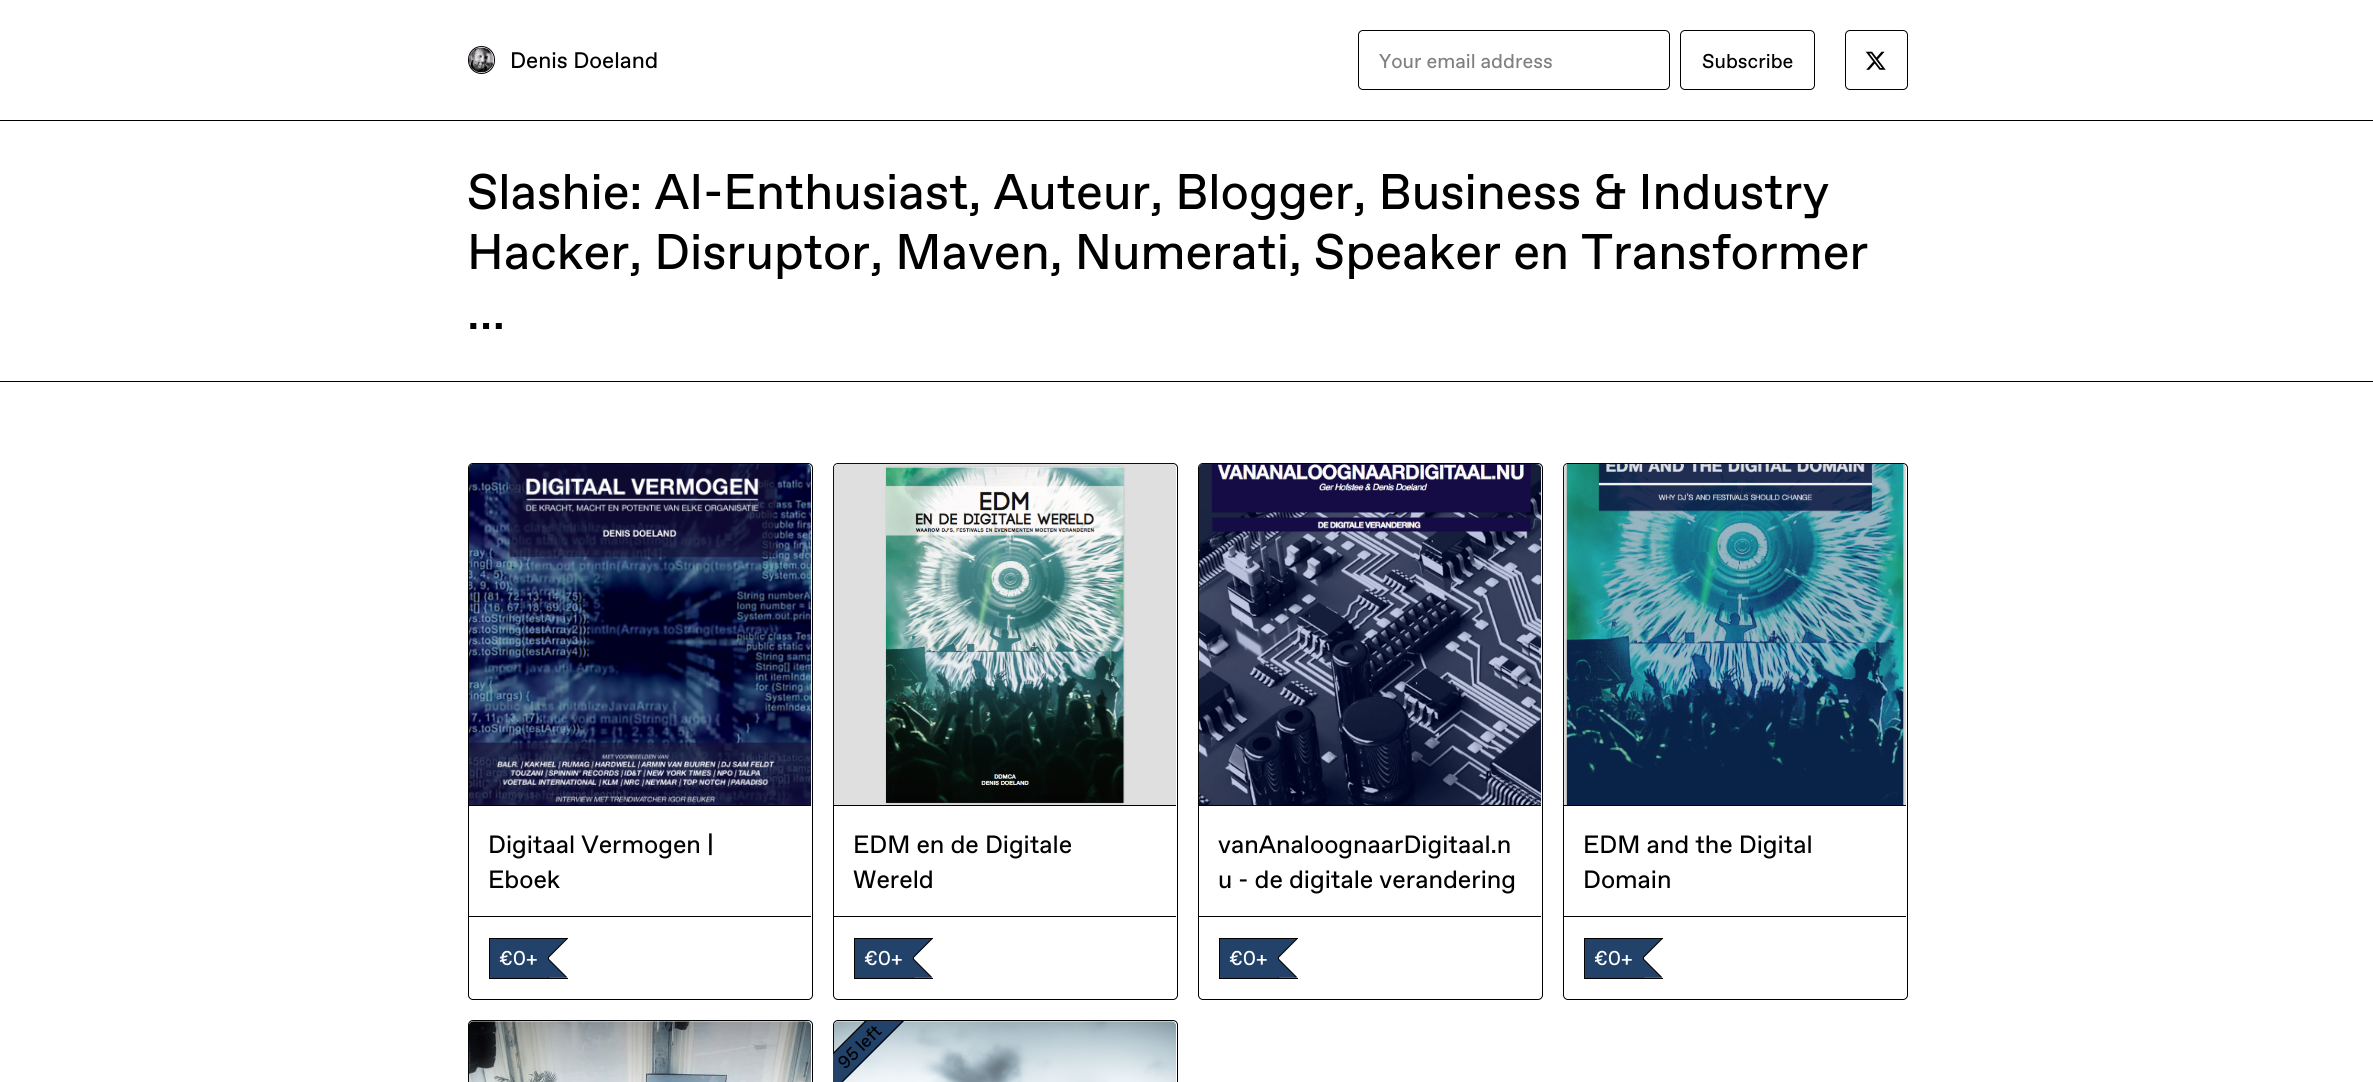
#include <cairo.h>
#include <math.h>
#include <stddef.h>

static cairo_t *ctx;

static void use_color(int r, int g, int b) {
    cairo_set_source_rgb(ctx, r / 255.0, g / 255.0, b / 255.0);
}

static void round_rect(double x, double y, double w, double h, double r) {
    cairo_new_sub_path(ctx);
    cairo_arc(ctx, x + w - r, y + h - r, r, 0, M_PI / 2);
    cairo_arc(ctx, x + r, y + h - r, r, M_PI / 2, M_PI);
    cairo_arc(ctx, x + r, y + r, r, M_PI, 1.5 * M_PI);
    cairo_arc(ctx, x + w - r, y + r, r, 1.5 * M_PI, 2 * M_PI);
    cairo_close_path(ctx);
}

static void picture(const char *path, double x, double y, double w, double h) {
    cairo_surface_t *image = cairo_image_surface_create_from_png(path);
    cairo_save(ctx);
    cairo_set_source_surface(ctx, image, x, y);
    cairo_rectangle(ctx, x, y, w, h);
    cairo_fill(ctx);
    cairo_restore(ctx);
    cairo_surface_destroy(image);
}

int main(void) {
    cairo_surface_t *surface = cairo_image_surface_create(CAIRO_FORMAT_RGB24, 2373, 1082);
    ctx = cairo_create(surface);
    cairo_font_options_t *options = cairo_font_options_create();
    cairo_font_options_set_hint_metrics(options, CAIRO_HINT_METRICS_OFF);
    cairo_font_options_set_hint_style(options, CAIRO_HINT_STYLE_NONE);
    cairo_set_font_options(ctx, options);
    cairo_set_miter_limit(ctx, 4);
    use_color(255, 255, 255);
    cairo_paint(ctx);
    use_color(0, 0, 0);
    cairo_rectangle(ctx, 0, 120, 2373, 1);
    cairo_fill(ctx);
    round_rect(468.5, 46.5, 26, 27, 13);
    cairo_set_line_width(ctx, 1);
    cairo_stroke(ctx);
    picture("img1.png", 468, 47, 26, 26);
    cairo_select_font_face(ctx, "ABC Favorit", CAIRO_FONT_SLANT_NORMAL, CAIRO_FONT_WEIGHT_NORMAL);
    cairo_set_font_size(ctx, 22.5);
    cairo_move_to(ctx, 510, 68);
    cairo_show_text(ctx, "Denis Doeland");
    round_rect(1358.5, 30.5, 311, 59, 4.5);
    cairo_stroke(ctx);
    cairo_set_font_size(ctx, 20);
    use_color(128, 128, 128);
    cairo_move_to(ctx, 1379, 68);
    cairo_show_text(ctx, "Your email address");
    round_rect(1680.5, 30.5, 134, 59, 4.5);
    use_color(0, 0, 0);
    cairo_stroke(ctx);
    cairo_move_to(ctx, 1702, 68);
    cairo_show_text(ctx, "Subscribe");
    round_rect(1845.5, 30.5, 62, 59, 4.5);
    cairo_stroke(ctx);
    picture("img2.png", 1865, 51, 21, 19);
    cairo_rectangle(ctx, 0, 381, 2373, 1);
    cairo_fill(ctx);
    cairo_set_font_size(ctx, 50);
    cairo_move_to(ctx, 467, 209);
    cairo_show_text(ctx, "Slashie: AI-Enthusiast, Auteur, Blogger, Business & Industry");
    cairo_move_to(ctx, 467, 269);
    cairo_show_text(ctx, "Hacker, Disruptor, Maven, Numerati, Speaker en Transformer");
    cairo_move_to(ctx, 467, 329);
    cairo_show_text(ctx, "…");
    round_rect(468.5, 463.5, 344, 536, 4.5);
    cairo_stroke(ctx);
    cairo_rectangle(ctx, 469, 805, 342, 1);
    cairo_fill(ctx);
    picture("img3.png", 468, 463, 344, 342);
    cairo_rectangle(ctx, 469, 916, 342, 1);
    cairo_fill(ctx);
    cairo_set_font_size(ctx, 25);
    cairo_move_to(ctx, 488, 853);
    cairo_show_text(ctx, "Digitaal Vermogen |");
    cairo_move_to(ctx, 488, 888);
    cairo_show_text(ctx, "Eboek");
    cairo_rectangle(ctx, 489, 938, 79, 1);
    cairo_fill(ctx);
    cairo_rectangle(ctx, 489, 978, 79, 1);
    cairo_fill(ctx);
    cairo_rectangle(ctx, 489, 938, 1, 41);
    cairo_fill(ctx);
    use_color(34, 66, 105);
    cairo_rectangle(ctx, 490, 939, 58, 39);
    cairo_fill(ctx);
    use_color(0, 0, 0);
    cairo_new_path(ctx);
    cairo_move_to(ctx, 547.5, 939);
    cairo_line_to(ctx, 567.5, 939);
    cairo_line_to(ctx, 549, 957.5);
    cairo_close_path(ctx);
    cairo_move_to(ctx, 567.5, 977.5);
    cairo_line_to(ctx, 547.5, 977.5);
    cairo_line_to(ctx, 549, 959);
    cairo_close_path(ctx);
    cairo_fill(ctx);
    cairo_rectangle(ctx, 548, 956, 1, 22);
    cairo_fill(ctx);
    use_color(34, 66, 105);
    cairo_new_path(ctx);
    cairo_move_to(ctx, 546, 939);
    cairo_line_to(ctx, 566, 939);
    cairo_line_to(ctx, 547.5, 957.5);
    cairo_close_path(ctx);
    cairo_move_to(ctx, 566, 977.5);
    cairo_line_to(ctx, 546, 977.5);
    cairo_line_to(ctx, 547.5, 959);
    cairo_close_path(ctx);
    cairo_fill(ctx);
    cairo_set_font_size(ctx, 20);
    use_color(255, 255, 255);
    cairo_move_to(ctx, 499, 965);
    cairo_show_text(ctx, "€0+");
    round_rect(833.5, 463.5, 344, 536, 4.5);
    use_color(0, 0, 0);
    cairo_stroke(ctx);
    cairo_rectangle(ctx, 834, 805, 342, 1);
    cairo_fill(ctx);
    picture("img4.png", 833, 463, 343, 342);
    cairo_rectangle(ctx, 834, 916, 342, 1);
    cairo_fill(ctx);
    cairo_set_font_size(ctx, 25);
    cairo_move_to(ctx, 853, 853);
    cairo_show_text(ctx, "EDM en de Digitale");
    cairo_move_to(ctx, 853, 888);
    cairo_show_text(ctx, "Wereld");
    cairo_rectangle(ctx, 854, 938, 79, 1);
    cairo_fill(ctx);
    cairo_rectangle(ctx, 854, 978, 79, 1);
    cairo_fill(ctx);
    cairo_rectangle(ctx, 854, 938, 1, 41);
    cairo_fill(ctx);
    use_color(34, 66, 105);
    cairo_rectangle(ctx, 855, 939, 58, 39);
    cairo_fill(ctx);
    use_color(0, 0, 0);
    cairo_new_path(ctx);
    cairo_move_to(ctx, 912.5, 939);
    cairo_line_to(ctx, 932.5, 939);
    cairo_line_to(ctx, 914, 957.5);
    cairo_close_path(ctx);
    cairo_move_to(ctx, 932.5, 977.5);
    cairo_line_to(ctx, 912.5, 977.5);
    cairo_line_to(ctx, 914, 959);
    cairo_close_path(ctx);
    cairo_fill(ctx);
    cairo_rectangle(ctx, 913, 956, 1, 22);
    cairo_fill(ctx);
    use_color(34, 66, 105);
    cairo_new_path(ctx);
    cairo_move_to(ctx, 911, 939);
    cairo_line_to(ctx, 931, 939);
    cairo_line_to(ctx, 912.5, 957.5);
    cairo_close_path(ctx);
    cairo_move_to(ctx, 931, 977.5);
    cairo_line_to(ctx, 911, 977.5);
    cairo_line_to(ctx, 912.5, 959);
    cairo_close_path(ctx);
    cairo_fill(ctx);
    cairo_set_font_size(ctx, 20);
    use_color(255, 255, 255);
    cairo_move_to(ctx, 864, 965);
    cairo_show_text(ctx, "€0+");
    round_rect(1198.5, 463.5, 344, 536, 4.5);
    use_color(0, 0, 0);
    cairo_stroke(ctx);
    cairo_rectangle(ctx, 1199, 805, 342, 1);
    cairo_fill(ctx);
    picture("img5.png", 1198, 463, 344, 342);
    cairo_rectangle(ctx, 1199, 916, 342, 1);
    cairo_fill(ctx);
    cairo_set_font_size(ctx, 25);
    cairo_move_to(ctx, 1218, 853);
    cairo_show_text(ctx, "vanAnaloognaarDigitaal.n");
    cairo_move_to(ctx, 1218, 888);
    cairo_show_text(ctx, "u - de digitale verandering");
    cairo_rectangle(ctx, 1219, 938, 79, 1);
    cairo_fill(ctx);
    cairo_rectangle(ctx, 1219, 978, 79, 1);
    cairo_fill(ctx);
    cairo_rectangle(ctx, 1219, 938, 1, 41);
    cairo_fill(ctx);
    use_color(34, 66, 105);
    cairo_rectangle(ctx, 1220, 939, 58, 39);
    cairo_fill(ctx);
    use_color(0, 0, 0);
    cairo_new_path(ctx);
    cairo_move_to(ctx, 1277.5, 939);
    cairo_line_to(ctx, 1297.5, 939);
    cairo_line_to(ctx, 1279, 957.5);
    cairo_close_path(ctx);
    cairo_move_to(ctx, 1297.5, 977.5);
    cairo_line_to(ctx, 1277.5, 977.5);
    cairo_line_to(ctx, 1279, 959);
    cairo_close_path(ctx);
    cairo_fill(ctx);
    cairo_rectangle(ctx, 1278, 956, 1, 22);
    cairo_fill(ctx);
    use_color(34, 66, 105);
    cairo_new_path(ctx);
    cairo_move_to(ctx, 1276, 939);
    cairo_line_to(ctx, 1296, 939);
    cairo_line_to(ctx, 1277.5, 957.5);
    cairo_close_path(ctx);
    cairo_move_to(ctx, 1296, 977.5);
    cairo_line_to(ctx, 1276, 977.5);
    cairo_line_to(ctx, 1277.5, 959);
    cairo_close_path(ctx);
    cairo_fill(ctx);
    cairo_set_font_size(ctx, 20);
    use_color(255, 255, 255);
    cairo_move_to(ctx, 1229, 965);
    cairo_show_text(ctx, "€0+");
    round_rect(1563.5, 463.5, 344, 536, 4.5);
    use_color(0, 0, 0);
    cairo_stroke(ctx);
    cairo_rectangle(ctx, 1564, 805, 342, 1);
    cairo_fill(ctx);
    picture("img6.png", 1563, 463, 343, 342);
    cairo_rectangle(ctx, 1564, 916, 342, 1);
    cairo_fill(ctx);
    cairo_set_font_size(ctx, 25);
    cairo_move_to(ctx, 1583, 853);
    cairo_show_text(ctx, "EDM and the Digital");
    cairo_move_to(ctx, 1583, 888);
    cairo_show_text(ctx, "Domain");
    cairo_rectangle(ctx, 1584, 938, 79, 1);
    cairo_fill(ctx);
    cairo_rectangle(ctx, 1584, 978, 79, 1);
    cairo_fill(ctx);
    cairo_rectangle(ctx, 1584, 938, 1, 41);
    cairo_fill(ctx);
    use_color(34, 66, 105);
    cairo_rectangle(ctx, 1585, 939, 58, 39);
    cairo_fill(ctx);
    use_color(0, 0, 0);
    cairo_new_path(ctx);
    cairo_move_to(ctx, 1642.5, 939);
    cairo_line_to(ctx, 1662.5, 939);
    cairo_line_to(ctx, 1644, 957.5);
    cairo_close_path(ctx);
    cairo_move_to(ctx, 1662.5, 977.5);
    cairo_line_to(ctx, 1642.5, 977.5);
    cairo_line_to(ctx, 1644, 959);
    cairo_close_path(ctx);
    cairo_fill(ctx);
    cairo_rectangle(ctx, 1643, 956, 1, 22);
    cairo_fill(ctx);
    use_color(34, 66, 105);
    cairo_new_path(ctx);
    cairo_move_to(ctx, 1641, 939);
    cairo_line_to(ctx, 1661, 939);
    cairo_line_to(ctx, 1642.5, 957.5);
    cairo_close_path(ctx);
    cairo_move_to(ctx, 1661, 977.5);
    cairo_line_to(ctx, 1641, 977.5);
    cairo_line_to(ctx, 1642.5, 959);
    cairo_close_path(ctx);
    cairo_fill(ctx);
    cairo_set_font_size(ctx, 20);
    use_color(255, 255, 255);
    cairo_move_to(ctx, 1594, 965);
    cairo_show_text(ctx, "€0+");
    round_rect(468.5, 1020.5, 344, 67, 4.5);
    use_color(0, 0, 0);
    cairo_stroke(ctx);
    picture("img7.png", 468, 1021, 344, 61);
    round_rect(833.5, 1020.5, 344, 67, 4.5);
    cairo_stroke(ctx);
    picture("img8.png", 833, 1021, 344, 61);
    use_color(34, 66, 105);
    cairo_new_path(ctx);
    cairo_move_to(ctx, 833, 1053);
    cairo_line_to(ctx, 865, 1021);
    cairo_line_to(ctx, 904, 1021);
    cairo_line_to(ctx, 833, 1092);
    cairo_close_path(ctx);
    cairo_fill(ctx);
    cairo_save(ctx);
    cairo_new_path(ctx);
    cairo_move_to(ctx, 833, 1053);
    cairo_line_to(ctx, 865, 1021);
    cairo_line_to(ctx, 904, 1021);
    cairo_line_to(ctx, 833, 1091.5);
    cairo_close_path(ctx);
    cairo_clip(ctx);
    cairo_new_path(ctx);
    cairo_move_to(ctx, 814.5, 1072);
    cairo_line_to(ctx, 884.5, 1002.5);
    cairo_line_to(ctx, 903, 1021);
    cairo_line_to(ctx, 833, 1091);
    cairo_close_path(ctx);
    use_color(0, 0, 0);
    cairo_set_line_width(ctx, 1.2);
    cairo_stroke(ctx);
    cairo_restore(ctx);
    cairo_set_font_size(ctx, 18);
    use_color(0, 0, 0);
    cairo_save(ctx);
    cairo_translate(ctx, 863, 1052);
    cairo_rotate(ctx, -45 * M_PI / 180);
    cairo_move_to(ctx, 0, 0);
    cairo_show_text(ctx, "left");
    cairo_restore(ctx);
    cairo_save(ctx);
    cairo_translate(ctx, 845, 1070);
    cairo_rotate(ctx, -45 * M_PI / 180);
    cairo_move_to(ctx, 0, 0);
    cairo_show_text(ctx, "95");
    cairo_restore(ctx);
    cairo_surface_write_to_png(surface, "result.png");
    cairo_font_options_destroy(options);
    cairo_destroy(ctx);
    cairo_surface_destroy(surface);
    return 0;
}
